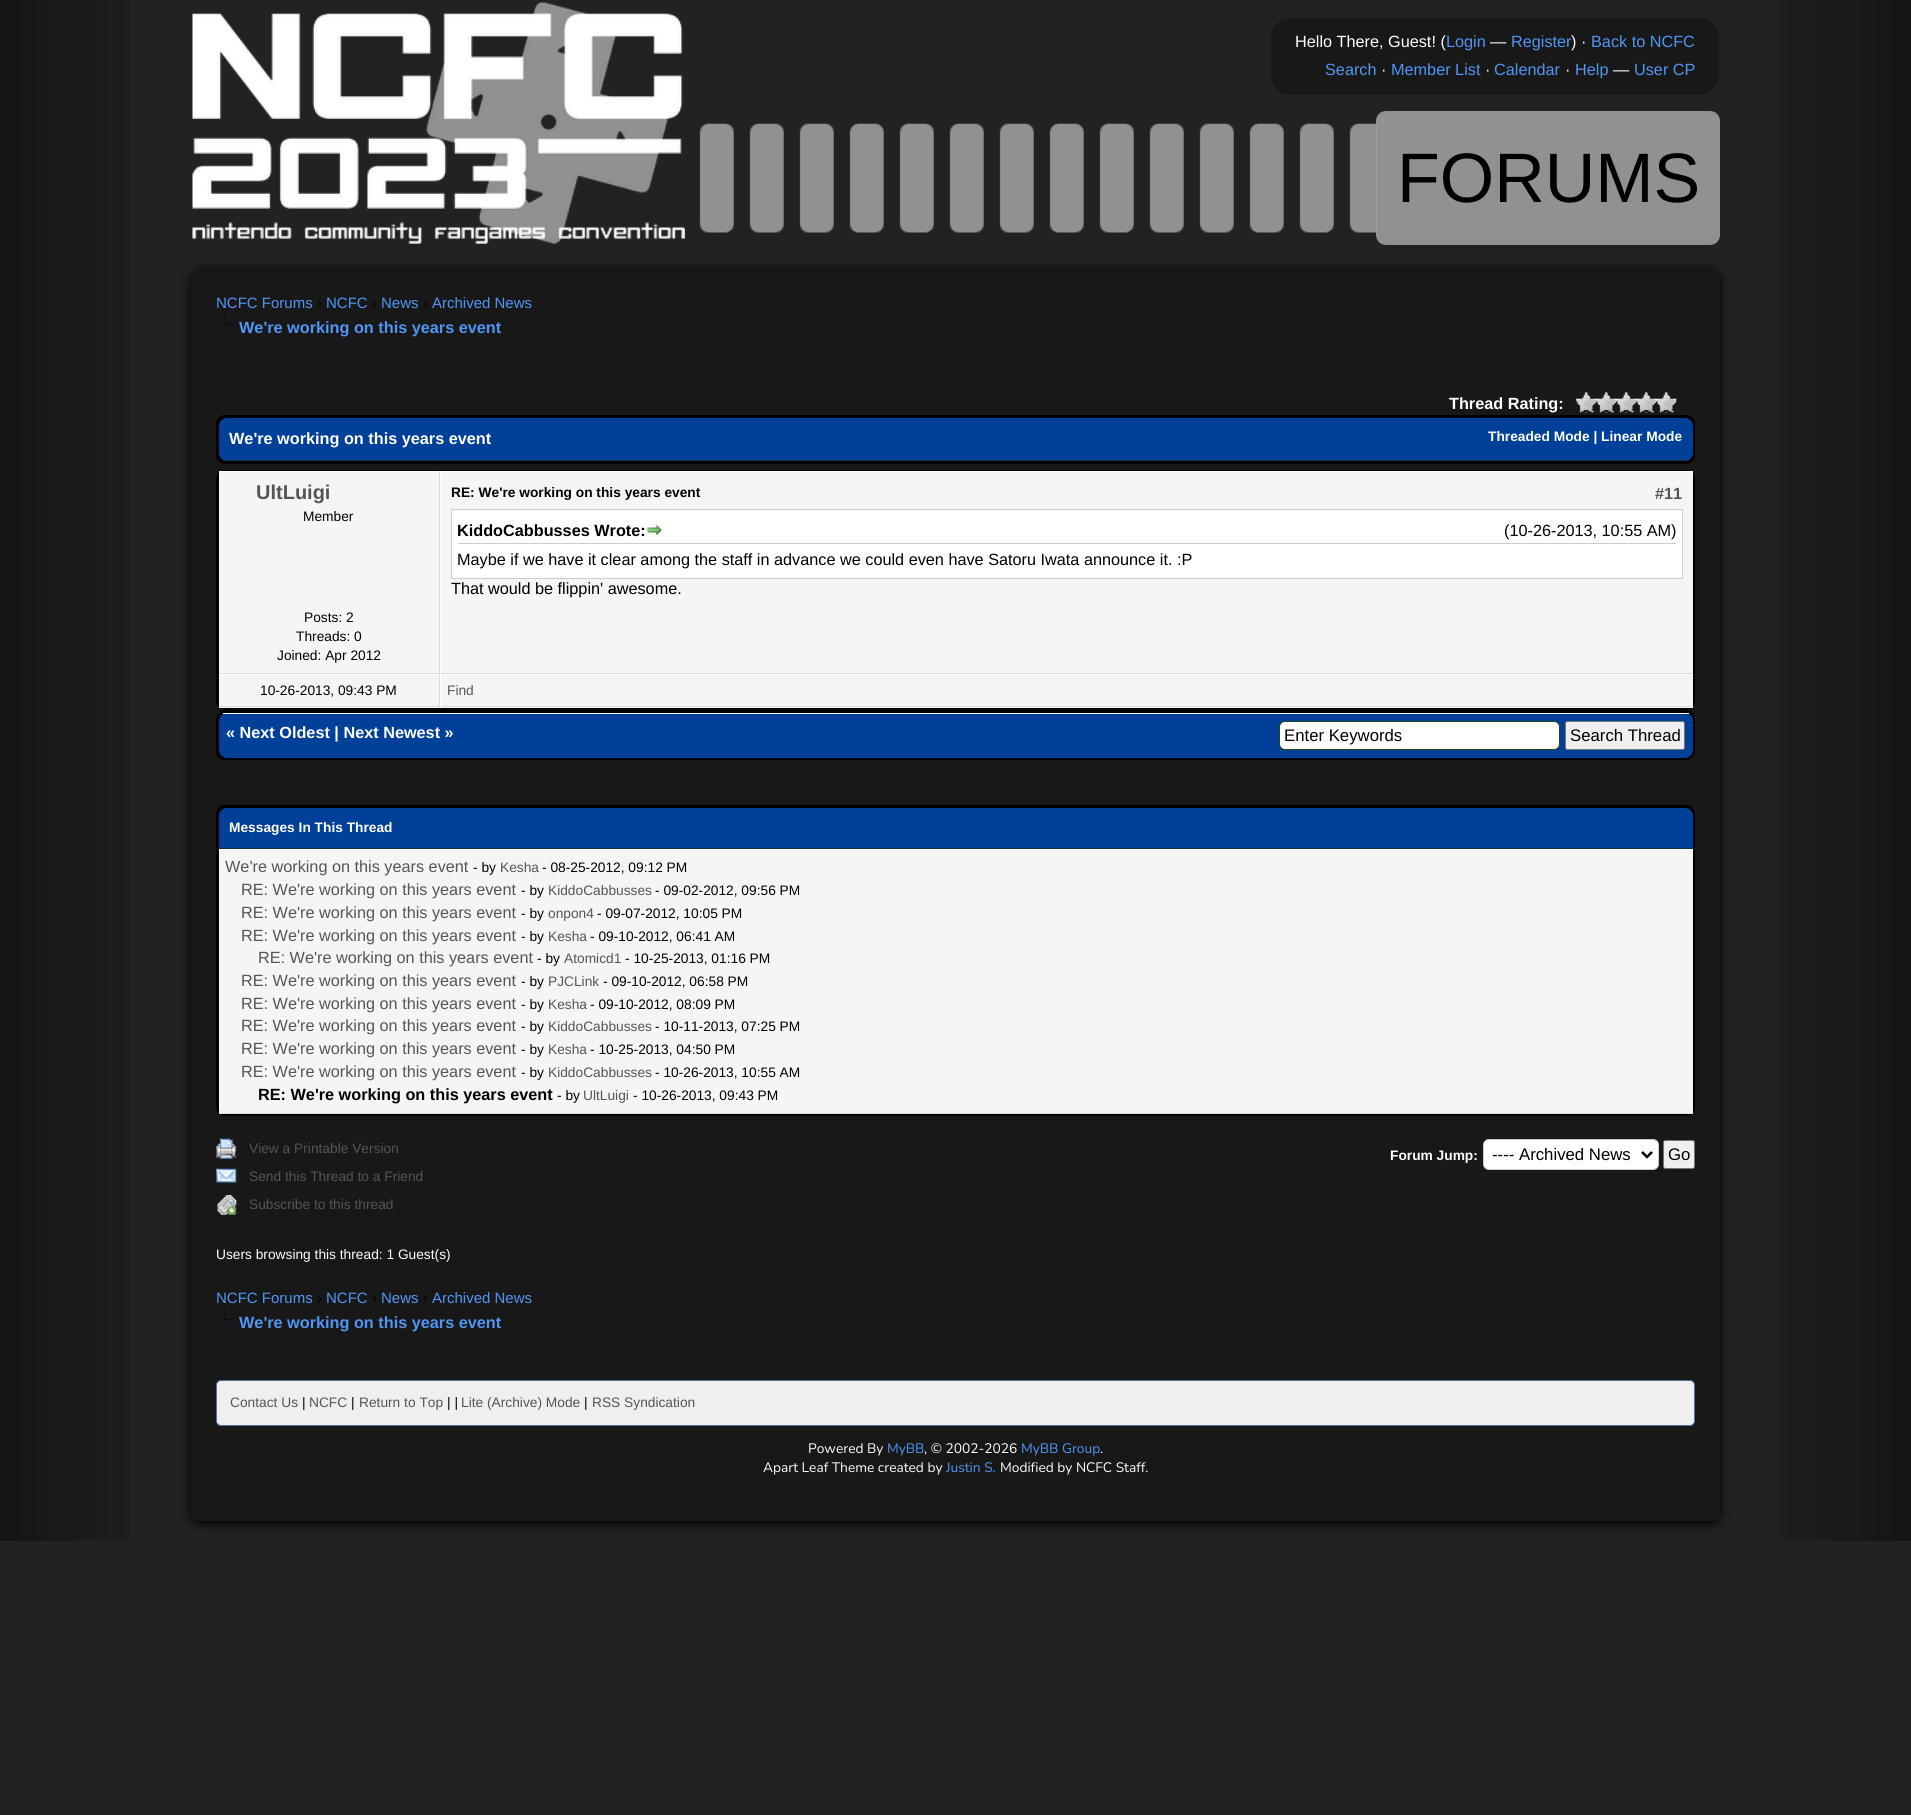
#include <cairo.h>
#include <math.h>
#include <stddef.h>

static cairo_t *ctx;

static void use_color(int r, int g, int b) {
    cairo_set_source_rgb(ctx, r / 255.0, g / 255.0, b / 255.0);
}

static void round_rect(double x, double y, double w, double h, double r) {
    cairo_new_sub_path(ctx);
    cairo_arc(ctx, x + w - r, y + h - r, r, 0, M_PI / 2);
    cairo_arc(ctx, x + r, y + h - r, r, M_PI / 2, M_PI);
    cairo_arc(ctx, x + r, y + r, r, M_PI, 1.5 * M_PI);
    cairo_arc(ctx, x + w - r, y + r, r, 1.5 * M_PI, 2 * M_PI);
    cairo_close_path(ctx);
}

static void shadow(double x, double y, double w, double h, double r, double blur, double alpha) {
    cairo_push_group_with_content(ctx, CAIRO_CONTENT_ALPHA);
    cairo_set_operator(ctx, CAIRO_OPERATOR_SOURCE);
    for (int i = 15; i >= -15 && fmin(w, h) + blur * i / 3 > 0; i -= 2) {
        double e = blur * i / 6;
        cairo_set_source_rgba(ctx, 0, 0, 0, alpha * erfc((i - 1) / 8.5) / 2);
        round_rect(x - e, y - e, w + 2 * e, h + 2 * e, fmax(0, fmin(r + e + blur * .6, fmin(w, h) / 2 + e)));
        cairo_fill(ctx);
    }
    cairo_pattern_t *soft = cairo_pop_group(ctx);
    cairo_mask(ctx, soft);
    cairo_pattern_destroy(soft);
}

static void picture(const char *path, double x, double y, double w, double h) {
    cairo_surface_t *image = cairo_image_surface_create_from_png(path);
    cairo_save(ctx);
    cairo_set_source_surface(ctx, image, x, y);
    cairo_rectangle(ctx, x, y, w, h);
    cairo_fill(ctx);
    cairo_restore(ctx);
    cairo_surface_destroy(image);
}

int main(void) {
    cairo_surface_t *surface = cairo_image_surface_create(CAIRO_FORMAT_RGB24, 1911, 1815);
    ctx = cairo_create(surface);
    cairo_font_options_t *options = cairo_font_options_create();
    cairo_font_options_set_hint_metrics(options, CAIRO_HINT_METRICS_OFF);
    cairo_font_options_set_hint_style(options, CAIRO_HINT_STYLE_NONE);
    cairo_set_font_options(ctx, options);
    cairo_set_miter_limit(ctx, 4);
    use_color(34, 34, 34);
    cairo_paint(ctx);
    picture("img1.png", 0, 0, 130, 1541);
    picture("img2.png", 192, 2, 493, 242);
    use_color(24, 24, 24);
    round_rect(1271, 18, 448, 77, 20);
    cairo_fill(ctx);
    cairo_select_font_face(ctx, "Liberation Sans", CAIRO_FONT_SLANT_NORMAL, CAIRO_FONT_WEIGHT_NORMAL);
    cairo_set_font_size(ctx, 16.25);
    use_color(255, 255, 255);
    cairo_move_to(ctx, 1295, 47);
    cairo_show_text(ctx, "Hello There, Guest! (");
    use_color(80, 150, 245);
    cairo_move_to(ctx, 1446, 47);
    cairo_show_text(ctx, "Login");
    use_color(255, 255, 255);
    cairo_move_to(ctx, 1490, 47);
    cairo_show_text(ctx, "—");
    use_color(80, 150, 245);
    cairo_move_to(ctx, 1511, 47);
    cairo_show_text(ctx, "Register");
    use_color(255, 255, 255);
    cairo_move_to(ctx, 1571, 47);
    cairo_show_text(ctx, ") ·");
    use_color(80, 150, 245);
    cairo_move_to(ctx, 1591, 47);
    cairo_show_text(ctx, "Back to NCFC");
    cairo_move_to(ctx, 1325, 75);
    cairo_show_text(ctx, "Search");
    use_color(255, 255, 255);
    cairo_move_to(ctx, 1381, 75);
    cairo_show_text(ctx, "·");
    use_color(80, 150, 245);
    cairo_move_to(ctx, 1391, 75);
    cairo_show_text(ctx, "Member List");
    use_color(255, 255, 255);
    cairo_move_to(ctx, 1485, 75);
    cairo_show_text(ctx, "·");
    use_color(80, 150, 245);
    cairo_move_to(ctx, 1494, 75);
    cairo_show_text(ctx, "Calendar");
    use_color(255, 255, 255);
    cairo_move_to(ctx, 1565, 75);
    cairo_show_text(ctx, "·");
    use_color(80, 150, 245);
    cairo_move_to(ctx, 1575, 75);
    cairo_show_text(ctx, "Help");
    use_color(255, 255, 255);
    cairo_move_to(ctx, 1613, 75);
    cairo_show_text(ctx, "—");
    use_color(80, 150, 245);
    cairo_move_to(ctx, 1634, 75);
    cairo_show_text(ctx, "User CP");
    picture("img3.png", 699, 123, 678, 110);
    cairo_set_source_rgba(ctx, 1, 1, 1, 0.5);
    round_rect(1376, 111, 344, 134, 10);
    cairo_fill(ctx);
    cairo_set_font_size(ctx, 70);
    use_color(0, 0, 0);
    cairo_move_to(ctx, 1397, 202);
    cairo_show_text(ctx, "FORUMS");
    cairo_save(ctx);
    cairo_set_fill_rule(ctx, CAIRO_FILL_RULE_EVEN_ODD);
    cairo_new_path(ctx);
    cairo_move_to(ctx, 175, 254);
    cairo_line_to(ctx, 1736, 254);
    cairo_line_to(ctx, 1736, 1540);
    cairo_line_to(ctx, 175, 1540);
    cairo_close_path(ctx);
    cairo_move_to(ctx, 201, 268);
    cairo_line_to(ctx, 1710, 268);
    cairo_curve_to(ctx, 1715.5, 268, 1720, 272.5, 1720, 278);
    cairo_line_to(ctx, 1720, 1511);
    cairo_curve_to(ctx, 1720, 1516.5, 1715.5, 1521, 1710, 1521);
    cairo_line_to(ctx, 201, 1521);
    cairo_curve_to(ctx, 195.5, 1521, 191, 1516.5, 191, 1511);
    cairo_line_to(ctx, 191, 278);
    cairo_curve_to(ctx, 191, 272.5, 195.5, 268, 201, 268);
    cairo_close_path(ctx);
    cairo_clip(ctx);
    use_color(0, 0, 0);
    shadow(191, 270, 1529, 1254, 10, 5, 1);
    cairo_restore(ctx);
    cairo_set_source_rgba(ctx, 0, 0, 0, 0.3);
    round_rect(191, 268, 1529, 1253, 10);
    cairo_fill(ctx);
    cairo_set_font_size(ctx, 15);
    use_color(80, 150, 245);
    cairo_move_to(ctx, 216, 308);
    cairo_show_text(ctx, "NCFC Forums");
    use_color(0, 0, 0);
    cairo_move_to(ctx, 317, 308);
    cairo_show_text(ctx, "›");
    use_color(80, 150, 245);
    cairo_move_to(ctx, 326, 308);
    cairo_show_text(ctx, "NCFC");
    use_color(0, 0, 0);
    cairo_move_to(ctx, 372, 308);
    cairo_show_text(ctx, "›");
    use_color(80, 150, 245);
    cairo_move_to(ctx, 381, 308);
    cairo_show_text(ctx, "News");
    use_color(0, 0, 0);
    cairo_move_to(ctx, 423, 308);
    cairo_show_text(ctx, "›");
    use_color(80, 150, 245);
    cairo_move_to(ctx, 432, 308);
    cairo_show_text(ctx, "Archived News");
    picture("img4.png", 223, 313, 12, 12);
    cairo_select_font_face(ctx, "Liberation Sans", CAIRO_FONT_SLANT_NORMAL, CAIRO_FONT_WEIGHT_BOLD);
    cairo_set_font_size(ctx, 16.25);
    cairo_move_to(ctx, 239, 333);
    cairo_show_text(ctx, "We're working on this years event");
    use_color(255, 255, 255);
    cairo_move_to(ctx, 1449, 409);
    cairo_show_text(ctx, "Thread Rating:");
    picture("img5.png", 1576, 392, 101, 21);
    use_color(0, 0, 0);
    round_rect(216.5, 415.5, 1478, 48, 8.5);
    cairo_fill_preserve(ctx);
    cairo_set_line_width(ctx, 1);
    cairo_stroke(ctx);
    use_color(0, 64, 152);
    round_rect(219, 418, 1474, 43, 8);
    cairo_fill(ctx);
    use_color(14, 53, 63);
    cairo_rectangle(ctx, 223, 460, 1466, 1);
    cairo_fill(ctx);
    use_color(255, 255, 255);
    cairo_move_to(ctx, 229, 444);
    cairo_show_text(ctx, "We're working on this years event");
    cairo_set_font_size(ctx, 13.75);
    cairo_move_to(ctx, 1488, 441);
    cairo_show_text(ctx, "Threaded Mode | Linear Mode");
    use_color(0, 0, 0);
    cairo_new_path(ctx);
    cairo_move_to(ctx, 225, 470);
    cairo_line_to(ctx, 1686, 470);
    cairo_curve_to(ctx, 1690, 470, 1694, 474, 1694, 479);
    cairo_line_to(ctx, 1694, 701);
    cairo_curve_to(ctx, 1694, 705, 1690, 709, 1686, 709);
    cairo_line_to(ctx, 225, 709);
    cairo_curve_to(ctx, 221, 709, 218, 705, 218, 701);
    cairo_line_to(ctx, 218, 479);
    cairo_curve_to(ctx, 218, 474, 221, 470, 225, 470);
    cairo_close_path(ctx);
    cairo_fill(ctx);
    cairo_set_fill_rule(ctx, CAIRO_FILL_RULE_EVEN_ODD);
    cairo_new_path(ctx);
    cairo_move_to(ctx, 225, 470);
    cairo_line_to(ctx, 1686, 470);
    cairo_curve_to(ctx, 1691, 470, 1695, 474, 1695, 479);
    cairo_line_to(ctx, 1695, 701);
    cairo_curve_to(ctx, 1695, 706, 1691, 710, 1686, 710);
    cairo_line_to(ctx, 225, 710);
    cairo_curve_to(ctx, 220, 710, 216, 706, 216, 701);
    cairo_line_to(ctx, 216, 479);
    cairo_curve_to(ctx, 216, 474, 220, 470, 225, 470);
    cairo_close_path(ctx);
    cairo_move_to(ctx, 225, 470);
    cairo_line_to(ctx, 1686, 470);
    cairo_curve_to(ctx, 1690, 470, 1694, 474, 1694, 479);
    cairo_line_to(ctx, 1694, 701);
    cairo_curve_to(ctx, 1694, 705, 1690, 709, 1686, 709);
    cairo_line_to(ctx, 225, 709);
    cairo_curve_to(ctx, 221, 709, 218, 705, 218, 701);
    cairo_line_to(ctx, 218, 479);
    cairo_curve_to(ctx, 218, 474, 221, 470, 225, 470);
    cairo_close_path(ctx);
    cairo_fill(ctx);
    use_color(245, 245, 245);
    cairo_rectangle(ctx, 219, 472, 220, 201);
    cairo_fill(ctx);
    use_color(255, 255, 255);
    cairo_rectangle(ctx, 219, 471, 1474, 1);
    cairo_fill(ctx);
    use_color(221, 221, 221);
    cairo_rectangle(ctx, 439, 471, 1, 203);
    cairo_fill(ctx);
    cairo_rectangle(ctx, 219, 673, 1474, 1);
    cairo_fill(ctx);
    cairo_set_font_size(ctx, 20);
    use_color(85, 85, 85);
    cairo_move_to(ctx, 256, 499);
    cairo_show_text(ctx, "UltLuigi");
    cairo_select_font_face(ctx, "Liberation Sans", CAIRO_FONT_SLANT_NORMAL, CAIRO_FONT_WEIGHT_NORMAL);
    cairo_set_font_size(ctx, 13.75);
    use_color(0, 0, 0);
    cairo_move_to(ctx, 303, 521);
    cairo_show_text(ctx, "Member");
    cairo_move_to(ctx, 304, 622);
    cairo_show_text(ctx, "Posts: 2");
    cairo_move_to(ctx, 296, 641);
    cairo_show_text(ctx, "Threads: 0");
    cairo_move_to(ctx, 277, 660);
    cairo_show_text(ctx, "Joined: Apr 2012");
    use_color(245, 245, 245);
    cairo_rectangle(ctx, 441, 472, 1252, 201);
    cairo_fill(ctx);
    use_color(255, 255, 255);
    cairo_rectangle(ctx, 440, 471, 1, 203);
    cairo_fill(ctx);
    cairo_select_font_face(ctx, "Liberation Sans", CAIRO_FONT_SLANT_NORMAL, CAIRO_FONT_WEIGHT_BOLD);
    use_color(0, 0, 0);
    cairo_move_to(ctx, 451, 497);
    cairo_show_text(ctx, "RE: We're working on this years event");
    cairo_set_font_size(ctx, 16.25);
    use_color(85, 85, 85);
    cairo_move_to(ctx, 1655, 499);
    cairo_show_text(ctx, "#11");
    use_color(255, 255, 255);
    cairo_rectangle(ctx, 451.5, 509.5, 1231, 69);
    cairo_fill_preserve(ctx);
    use_color(204, 204, 204);
    cairo_stroke(ctx);
    cairo_rectangle(ctx, 458, 543, 1218, 1);
    cairo_fill(ctx);
    use_color(0, 0, 0);
    cairo_move_to(ctx, 457, 536);
    cairo_show_text(ctx, "KiddoCabbusses Wrote:");
    picture("img6.png", 647, 524, 15, 12);
    cairo_select_font_face(ctx, "Liberation Sans", CAIRO_FONT_SLANT_NORMAL, CAIRO_FONT_WEIGHT_NORMAL);
    cairo_move_to(ctx, 1504, 536);
    cairo_show_text(ctx, "(10-26-2013, 10:55 AM)");
    cairo_move_to(ctx, 457, 565);
    cairo_show_text(ctx, "Maybe if we have it clear among the staff in advance we could even have Satoru Iwata announce it. :P");
    cairo_move_to(ctx, 451, 594);
    cairo_show_text(ctx, "That would be flippin' awesome.");
    use_color(245, 245, 245);
    cairo_rectangle(ctx, 219, 675, 220, 33);
    cairo_fill(ctx);
    use_color(255, 255, 255);
    cairo_rectangle(ctx, 219, 674, 1474, 1);
    cairo_fill(ctx);
    use_color(221, 221, 221);
    cairo_rectangle(ctx, 439, 674, 1, 34);
    cairo_fill(ctx);
    cairo_rectangle(ctx, 219, 706, 221, 1);
    cairo_fill(ctx);
    cairo_set_font_size(ctx, 13.75);
    use_color(0, 0, 0);
    cairo_move_to(ctx, 260, 695);
    cairo_show_text(ctx, "10-26-2013, 09:43 PM");
    use_color(245, 245, 245);
    cairo_rectangle(ctx, 441, 675, 1252, 33);
    cairo_fill(ctx);
    use_color(221, 221, 221);
    cairo_rectangle(ctx, 440, 706, 1253, 1);
    cairo_fill(ctx);
    use_color(255, 255, 255);
    cairo_rectangle(ctx, 440, 674, 1, 34);
    cairo_fill(ctx);
    use_color(85, 85, 85);
    cairo_move_to(ctx, 447, 695);
    cairo_show_text(ctx, "Find");
    use_color(0, 0, 0);
    round_rect(216.5, 710.5, 1478, 49, 8.5);
    cairo_fill_preserve(ctx);
    cairo_stroke(ctx);
    use_color(0, 64, 152);
    round_rect(219, 713, 1474, 45, 8);
    cairo_fill(ctx);
    use_color(255, 255, 255);
    cairo_rectangle(ctx, 223, 713, 1466, 1);
    cairo_fill(ctx);
    cairo_select_font_face(ctx, "Liberation Sans", CAIRO_FONT_SLANT_NORMAL, CAIRO_FONT_WEIGHT_BOLD);
    cairo_set_font_size(ctx, 16.25);
    cairo_move_to(ctx, 226, 738);
    cairo_show_text(ctx, "« Next Oldest | Next Newest »");
    round_rect(1279.5, 721.5, 280, 28, 5.5);
    cairo_fill_preserve(ctx);
    use_color(35, 70, 21);
    cairo_stroke(ctx);
    cairo_select_font_face(ctx, "Liberation Sans", CAIRO_FONT_SLANT_NORMAL, CAIRO_FONT_WEIGHT_NORMAL);
    cairo_set_font_size(ctx, 16.75);
    use_color(0, 0, 0);
    cairo_move_to(ctx, 1284, 741);
    cairo_show_text(ctx, "Enter Keywords");
    use_color(239, 239, 239);
    round_rect(1565.5, 721.5, 119, 28, 2);
    cairo_fill_preserve(ctx);
    use_color(118, 118, 118);
    cairo_stroke(ctx);
    use_color(0, 0, 0);
    cairo_move_to(ctx, 1570, 741);
    cairo_show_text(ctx, "Search Thread");
    round_rect(216.5, 805.5, 1478, 310, 8.5);
    cairo_fill_preserve(ctx);
    cairo_stroke(ctx);
    use_color(0, 64, 152);
    cairo_new_path(ctx);
    cairo_move_to(ctx, 227, 808);
    cairo_line_to(ctx, 1685, 808);
    cairo_curve_to(ctx, 1689.5, 808, 1693, 811.5, 1693, 816);
    cairo_line_to(ctx, 1693, 849);
    cairo_line_to(ctx, 219, 849);
    cairo_line_to(ctx, 219, 816);
    cairo_curve_to(ctx, 219, 811.5, 222.5, 808, 227, 808);
    cairo_close_path(ctx);
    cairo_fill(ctx);
    use_color(14, 53, 63);
    cairo_rectangle(ctx, 219, 848, 1474, 1);
    cairo_fill(ctx);
    cairo_select_font_face(ctx, "Liberation Sans", CAIRO_FONT_SLANT_NORMAL, CAIRO_FONT_WEIGHT_BOLD);
    cairo_set_font_size(ctx, 13.75);
    use_color(255, 255, 255);
    cairo_move_to(ctx, 229, 832);
    cairo_show_text(ctx, "Messages In This Thread");
    use_color(245, 245, 245);
    cairo_rectangle(ctx, 219, 850, 1474, 263);
    cairo_fill(ctx);
    use_color(255, 255, 255);
    cairo_rectangle(ctx, 219, 849, 1474, 1);
    cairo_fill(ctx);
    use_color(221, 221, 221);
    cairo_rectangle(ctx, 219, 1113, 1474, 1);
    cairo_fill(ctx);
    cairo_select_font_face(ctx, "Liberation Sans", CAIRO_FONT_SLANT_NORMAL, CAIRO_FONT_WEIGHT_NORMAL);
    cairo_set_font_size(ctx, 16.25);
    use_color(85, 85, 85);
    cairo_move_to(ctx, 225, 872);
    cairo_show_text(ctx, "We're working on this years event");
    cairo_set_font_size(ctx, 13.75);
    use_color(0, 0, 0);
    cairo_move_to(ctx, 473, 872);
    cairo_show_text(ctx, "- by");
    use_color(85, 85, 85);
    cairo_move_to(ctx, 500, 872);
    cairo_show_text(ctx, "Kesha");
    use_color(0, 0, 0);
    cairo_move_to(ctx, 542, 872);
    cairo_show_text(ctx, "- 08-25-2012, 09:12 PM");
    cairo_set_font_size(ctx, 16.25);
    use_color(85, 85, 85);
    cairo_move_to(ctx, 241, 895);
    cairo_show_text(ctx, "RE: We're working on this years event");
    cairo_set_font_size(ctx, 13.75);
    use_color(0, 0, 0);
    cairo_move_to(ctx, 521, 895);
    cairo_show_text(ctx, "- by");
    use_color(85, 85, 85);
    cairo_move_to(ctx, 548, 895);
    cairo_show_text(ctx, "KiddoCabbusses");
    use_color(0, 0, 0);
    cairo_move_to(ctx, 655, 895);
    cairo_show_text(ctx, "- 09-02-2012, 09:56 PM");
    cairo_set_font_size(ctx, 16.25);
    use_color(85, 85, 85);
    cairo_move_to(ctx, 241, 918);
    cairo_show_text(ctx, "RE: We're working on this years event");
    cairo_set_font_size(ctx, 13.75);
    use_color(0, 0, 0);
    cairo_move_to(ctx, 521, 918);
    cairo_show_text(ctx, "- by");
    use_color(85, 85, 85);
    cairo_move_to(ctx, 548, 918);
    cairo_show_text(ctx, "onpon4");
    use_color(0, 0, 0);
    cairo_move_to(ctx, 597, 918);
    cairo_show_text(ctx, "- 09-07-2012, 10:05 PM");
    cairo_set_font_size(ctx, 16.25);
    use_color(85, 85, 85);
    cairo_move_to(ctx, 241, 941);
    cairo_show_text(ctx, "RE: We're working on this years event");
    cairo_set_font_size(ctx, 13.75);
    use_color(0, 0, 0);
    cairo_move_to(ctx, 521, 941);
    cairo_show_text(ctx, "- by");
    use_color(85, 85, 85);
    cairo_move_to(ctx, 548, 941);
    cairo_show_text(ctx, "Kesha");
    use_color(0, 0, 0);
    cairo_move_to(ctx, 590, 941);
    cairo_show_text(ctx, "- 09-10-2012, 06:41 AM");
    cairo_set_font_size(ctx, 16.25);
    use_color(85, 85, 85);
    cairo_move_to(ctx, 258, 963);
    cairo_show_text(ctx, "RE: We're working on this years event");
    cairo_set_font_size(ctx, 13.75);
    use_color(0, 0, 0);
    cairo_move_to(ctx, 537, 963);
    cairo_show_text(ctx, "- by");
    use_color(85, 85, 85);
    cairo_move_to(ctx, 564, 963);
    cairo_show_text(ctx, "Atomicd1");
    use_color(0, 0, 0);
    cairo_move_to(ctx, 625, 963);
    cairo_show_text(ctx, "- 10-25-2013, 01:16 PM");
    cairo_set_font_size(ctx, 16.25);
    use_color(85, 85, 85);
    cairo_move_to(ctx, 241, 986);
    cairo_show_text(ctx, "RE: We're working on this years event");
    cairo_set_font_size(ctx, 13.75);
    use_color(0, 0, 0);
    cairo_move_to(ctx, 521, 986);
    cairo_show_text(ctx, "- by");
    use_color(85, 85, 85);
    cairo_move_to(ctx, 548, 986);
    cairo_show_text(ctx, "PJCLink");
    use_color(0, 0, 0);
    cairo_move_to(ctx, 603, 986);
    cairo_show_text(ctx, "- 09-10-2012, 06:58 PM");
    cairo_set_font_size(ctx, 16.25);
    use_color(85, 85, 85);
    cairo_move_to(ctx, 241, 1009);
    cairo_show_text(ctx, "RE: We're working on this years event");
    cairo_set_font_size(ctx, 13.75);
    use_color(0, 0, 0);
    cairo_move_to(ctx, 521, 1009);
    cairo_show_text(ctx, "- by");
    use_color(85, 85, 85);
    cairo_move_to(ctx, 548, 1009);
    cairo_show_text(ctx, "Kesha");
    use_color(0, 0, 0);
    cairo_move_to(ctx, 590, 1009);
    cairo_show_text(ctx, "- 09-10-2012, 08:09 PM");
    cairo_set_font_size(ctx, 16.25);
    use_color(85, 85, 85);
    cairo_move_to(ctx, 241, 1031);
    cairo_show_text(ctx, "RE: We're working on this years event");
    cairo_set_font_size(ctx, 13.75);
    use_color(0, 0, 0);
    cairo_move_to(ctx, 521, 1031);
    cairo_show_text(ctx, "- by");
    use_color(85, 85, 85);
    cairo_move_to(ctx, 548, 1031);
    cairo_show_text(ctx, "KiddoCabbusses");
    use_color(0, 0, 0);
    cairo_move_to(ctx, 655, 1031);
    cairo_show_text(ctx, "- 10-11-2013, 07:25 PM");
    cairo_set_font_size(ctx, 16.25);
    use_color(85, 85, 85);
    cairo_move_to(ctx, 241, 1054);
    cairo_show_text(ctx, "RE: We're working on this years event");
    cairo_set_font_size(ctx, 13.75);
    use_color(0, 0, 0);
    cairo_move_to(ctx, 521, 1054);
    cairo_show_text(ctx, "- by");
    use_color(85, 85, 85);
    cairo_move_to(ctx, 548, 1054);
    cairo_show_text(ctx, "Kesha");
    use_color(0, 0, 0);
    cairo_move_to(ctx, 590, 1054);
    cairo_show_text(ctx, "- 10-25-2013, 04:50 PM");
    cairo_set_font_size(ctx, 16.25);
    use_color(85, 85, 85);
    cairo_move_to(ctx, 241, 1077);
    cairo_show_text(ctx, "RE: We're working on this years event");
    cairo_set_font_size(ctx, 13.75);
    use_color(0, 0, 0);
    cairo_move_to(ctx, 521, 1077);
    cairo_show_text(ctx, "- by");
    use_color(85, 85, 85);
    cairo_move_to(ctx, 548, 1077);
    cairo_show_text(ctx, "KiddoCabbusses");
    use_color(0, 0, 0);
    cairo_move_to(ctx, 655, 1077);
    cairo_show_text(ctx, "- 10-26-2013, 10:55 AM");
    cairo_select_font_face(ctx, "Liberation Sans", CAIRO_FONT_SLANT_NORMAL, CAIRO_FONT_WEIGHT_BOLD);
    cairo_set_font_size(ctx, 16.25);
    cairo_move_to(ctx, 258, 1100);
    cairo_show_text(ctx, "RE: We're working on this years event");
    cairo_select_font_face(ctx, "Liberation Sans", CAIRO_FONT_SLANT_NORMAL, CAIRO_FONT_WEIGHT_NORMAL);
    cairo_set_font_size(ctx, 13.75);
    cairo_move_to(ctx, 557, 1100);
    cairo_show_text(ctx, "- by");
    use_color(85, 85, 85);
    cairo_move_to(ctx, 583, 1100);
    cairo_show_text(ctx, "UltLuigi");
    use_color(0, 0, 0);
    cairo_move_to(ctx, 633, 1100);
    cairo_show_text(ctx, "- 10-26-2013, 09:43 PM");
    picture("img7.png", 216, 1138, 21, 21);
    use_color(85, 85, 85);
    cairo_move_to(ctx, 249, 1153);
    cairo_show_text(ctx, "View a Printable Version");
    picture("img8.png", 216, 1168, 21, 15);
    cairo_move_to(ctx, 249, 1181);
    cairo_show_text(ctx, "Send this Thread to a Friend");
    picture("img9.png", 217, 1195, 20, 20);
    cairo_move_to(ctx, 249, 1209);
    cairo_show_text(ctx, "Subscribe to this thread");
    cairo_select_font_face(ctx, "Liberation Sans", CAIRO_FONT_SLANT_NORMAL, CAIRO_FONT_WEIGHT_BOLD);
    use_color(255, 255, 255);
    cairo_move_to(ctx, 1390, 1160);
    cairo_show_text(ctx, "Forum Jump:");
    round_rect(1483.5, 1139.5, 175, 30, 5.5);
    cairo_fill_preserve(ctx);
    use_color(204, 204, 204);
    cairo_stroke(ctx);
    cairo_new_path(ctx);
    cairo_move_to(ctx, 1642, 1152);
    cairo_line_to(ctx, 1647, 1157);
    cairo_line_to(ctx, 1652, 1152);
    use_color(0, 0, 0);
    cairo_set_line_width(ctx, 2.5);
    cairo_stroke(ctx);
    cairo_select_font_face(ctx, "Liberation Sans", CAIRO_FONT_SLANT_NORMAL, CAIRO_FONT_WEIGHT_NORMAL);
    cairo_set_font_size(ctx, 16.75);
    cairo_move_to(ctx, 1492, 1160);
    cairo_show_text(ctx, "---- Archived News");
    use_color(239, 239, 239);
    round_rect(1663.5, 1140.5, 31, 28, 2);
    cairo_fill_preserve(ctx);
    use_color(118, 118, 118);
    cairo_set_line_width(ctx, 1);
    cairo_stroke(ctx);
    use_color(0, 0, 0);
    cairo_move_to(ctx, 1668, 1160);
    cairo_show_text(ctx, "Go");
    cairo_set_font_size(ctx, 13.75);
    use_color(255, 255, 255);
    cairo_move_to(ctx, 216, 1259);
    cairo_show_text(ctx, "Users browsing this thread: 1 Guest(s)");
    cairo_set_font_size(ctx, 15);
    use_color(80, 150, 245);
    cairo_move_to(ctx, 216, 1303);
    cairo_show_text(ctx, "NCFC Forums");
    use_color(0, 0, 0);
    cairo_move_to(ctx, 317, 1303);
    cairo_show_text(ctx, "›");
    use_color(80, 150, 245);
    cairo_move_to(ctx, 326, 1303);
    cairo_show_text(ctx, "NCFC");
    use_color(0, 0, 0);
    cairo_move_to(ctx, 372, 1303);
    cairo_show_text(ctx, "›");
    use_color(80, 150, 245);
    cairo_move_to(ctx, 381, 1303);
    cairo_show_text(ctx, "News");
    use_color(0, 0, 0);
    cairo_move_to(ctx, 423, 1303);
    cairo_show_text(ctx, "›");
    use_color(80, 150, 245);
    cairo_move_to(ctx, 432, 1303);
    cairo_show_text(ctx, "Archived News");
    picture("img4.png", 223, 1308, 12, 12);
    cairo_select_font_face(ctx, "Liberation Sans", CAIRO_FONT_SLANT_NORMAL, CAIRO_FONT_WEIGHT_BOLD);
    cairo_set_font_size(ctx, 16.25);
    cairo_move_to(ctx, 239, 1328);
    cairo_show_text(ctx, "We're working on this years event");
    use_color(239, 239, 239);
    round_rect(216.5, 1380.5, 1478, 45, 4.5);
    cairo_fill_preserve(ctx);
    use_color(72, 116, 163);
    cairo_stroke(ctx);
    cairo_select_font_face(ctx, "Liberation Sans", CAIRO_FONT_SLANT_NORMAL, CAIRO_FONT_WEIGHT_NORMAL);
    cairo_set_font_size(ctx, 13.75);
    use_color(85, 85, 85);
    cairo_move_to(ctx, 230, 1407);
    cairo_show_text(ctx, "Contact Us");
    use_color(0, 0, 0);
    cairo_move_to(ctx, 302, 1407);
    cairo_show_text(ctx, "|");
    use_color(85, 85, 85);
    cairo_move_to(ctx, 309, 1407);
    cairo_show_text(ctx, "NCFC");
    use_color(0, 0, 0);
    cairo_move_to(ctx, 351, 1407);
    cairo_show_text(ctx, "|");
    use_color(85, 85, 85);
    cairo_move_to(ctx, 359, 1407);
    cairo_show_text(ctx, "Return to Top");
    use_color(0, 0, 0);
    cairo_move_to(ctx, 447, 1407);
    cairo_show_text(ctx, "| |");
    use_color(85, 85, 85);
    cairo_move_to(ctx, 461, 1407);
    cairo_show_text(ctx, "Lite (Archive) Mode");
    use_color(0, 0, 0);
    cairo_move_to(ctx, 584, 1407);
    cairo_show_text(ctx, "|");
    use_color(85, 85, 85);
    cairo_move_to(ctx, 592, 1407);
    cairo_show_text(ctx, "RSS Syndication");
    cairo_select_font_face(ctx, "Nunito", CAIRO_FONT_SLANT_NORMAL, CAIRO_FONT_WEIGHT_NORMAL);
    use_color(255, 255, 255);
    cairo_move_to(ctx, 808, 1453);
    cairo_show_text(ctx, "Powered By");
    use_color(80, 150, 245);
    cairo_move_to(ctx, 887, 1453);
    cairo_show_text(ctx, "MyBB");
    use_color(255, 255, 255);
    cairo_move_to(ctx, 924, 1453);
    cairo_show_text(ctx, ", © 2002-2026");
    use_color(80, 150, 245);
    cairo_move_to(ctx, 1021, 1453);
    cairo_show_text(ctx, "MyBB Group");
    use_color(255, 255, 255);
    cairo_move_to(ctx, 1100, 1453);
    cairo_show_text(ctx, ".");
    cairo_move_to(ctx, 763, 1472);
    cairo_show_text(ctx, "Apart Leaf Theme created by");
    use_color(80, 150, 245);
    cairo_move_to(ctx, 946, 1472);
    cairo_show_text(ctx, "Justin S.");
    use_color(255, 255, 255);
    cairo_move_to(ctx, 1000, 1472);
    cairo_show_text(ctx, "Modified by NCFC Staff.");
    picture("img10.png", 1781, 0, 130, 1541);
    cairo_surface_write_to_png(surface, "result.png");
    cairo_font_options_destroy(options);
    cairo_destroy(ctx);
    cairo_surface_destroy(surface);
    return 0;
}
